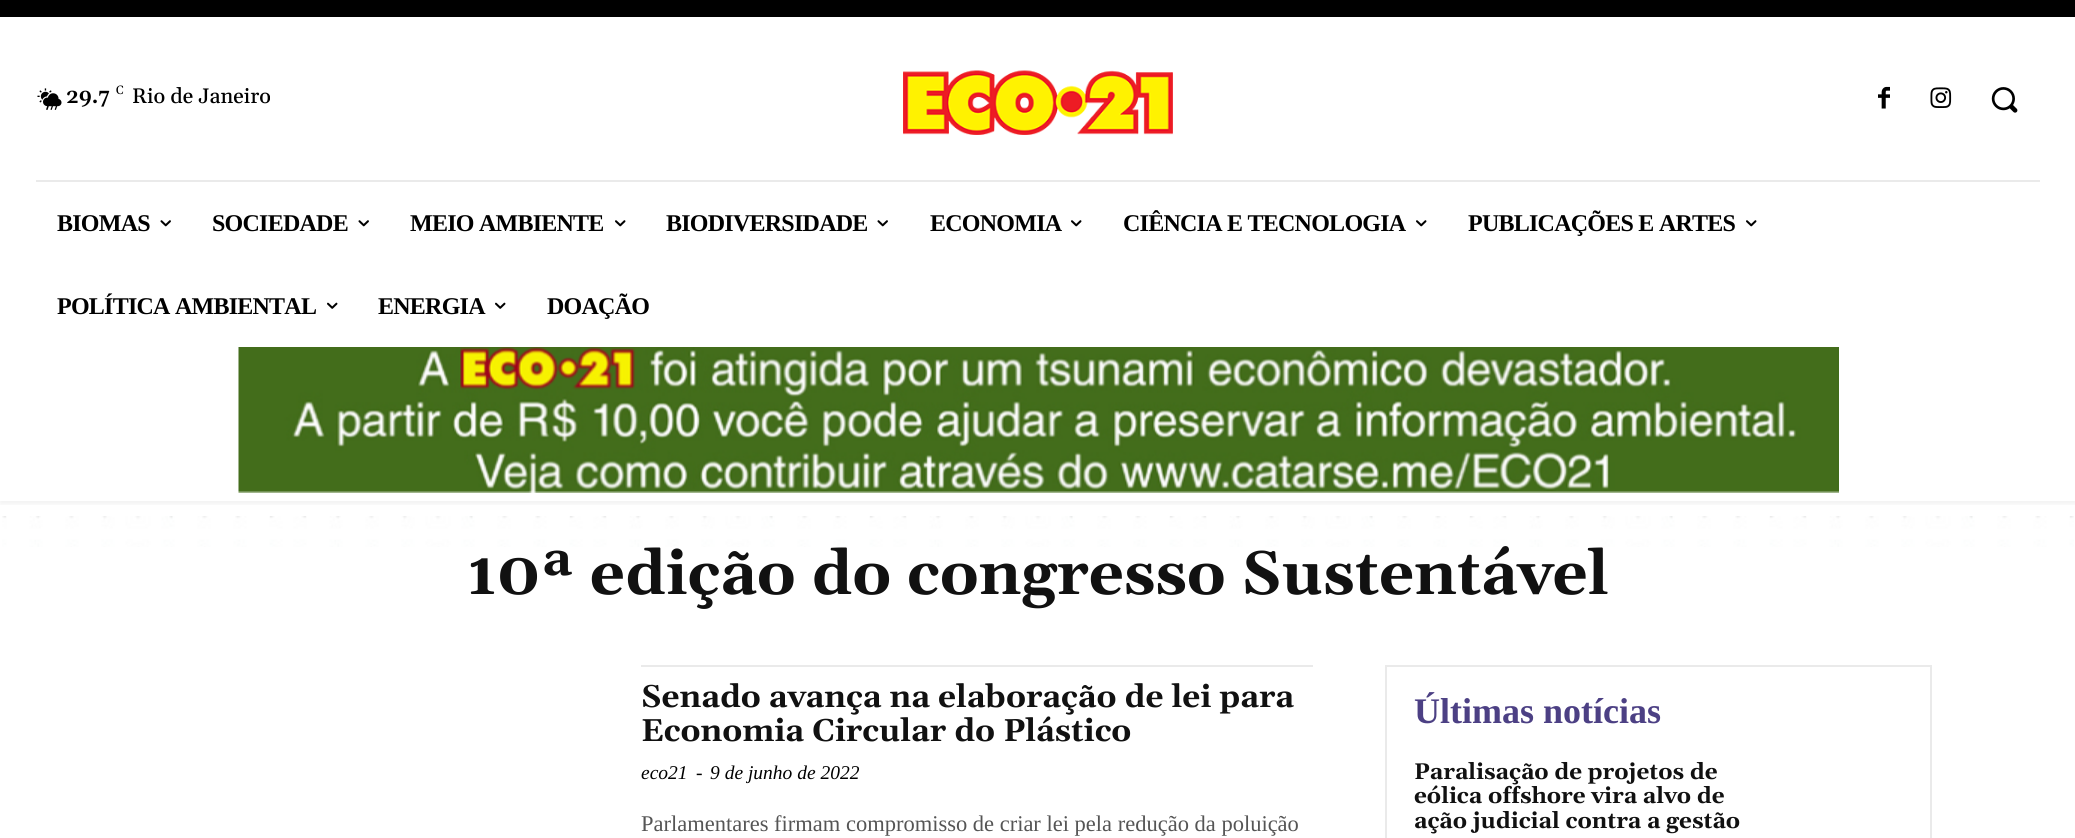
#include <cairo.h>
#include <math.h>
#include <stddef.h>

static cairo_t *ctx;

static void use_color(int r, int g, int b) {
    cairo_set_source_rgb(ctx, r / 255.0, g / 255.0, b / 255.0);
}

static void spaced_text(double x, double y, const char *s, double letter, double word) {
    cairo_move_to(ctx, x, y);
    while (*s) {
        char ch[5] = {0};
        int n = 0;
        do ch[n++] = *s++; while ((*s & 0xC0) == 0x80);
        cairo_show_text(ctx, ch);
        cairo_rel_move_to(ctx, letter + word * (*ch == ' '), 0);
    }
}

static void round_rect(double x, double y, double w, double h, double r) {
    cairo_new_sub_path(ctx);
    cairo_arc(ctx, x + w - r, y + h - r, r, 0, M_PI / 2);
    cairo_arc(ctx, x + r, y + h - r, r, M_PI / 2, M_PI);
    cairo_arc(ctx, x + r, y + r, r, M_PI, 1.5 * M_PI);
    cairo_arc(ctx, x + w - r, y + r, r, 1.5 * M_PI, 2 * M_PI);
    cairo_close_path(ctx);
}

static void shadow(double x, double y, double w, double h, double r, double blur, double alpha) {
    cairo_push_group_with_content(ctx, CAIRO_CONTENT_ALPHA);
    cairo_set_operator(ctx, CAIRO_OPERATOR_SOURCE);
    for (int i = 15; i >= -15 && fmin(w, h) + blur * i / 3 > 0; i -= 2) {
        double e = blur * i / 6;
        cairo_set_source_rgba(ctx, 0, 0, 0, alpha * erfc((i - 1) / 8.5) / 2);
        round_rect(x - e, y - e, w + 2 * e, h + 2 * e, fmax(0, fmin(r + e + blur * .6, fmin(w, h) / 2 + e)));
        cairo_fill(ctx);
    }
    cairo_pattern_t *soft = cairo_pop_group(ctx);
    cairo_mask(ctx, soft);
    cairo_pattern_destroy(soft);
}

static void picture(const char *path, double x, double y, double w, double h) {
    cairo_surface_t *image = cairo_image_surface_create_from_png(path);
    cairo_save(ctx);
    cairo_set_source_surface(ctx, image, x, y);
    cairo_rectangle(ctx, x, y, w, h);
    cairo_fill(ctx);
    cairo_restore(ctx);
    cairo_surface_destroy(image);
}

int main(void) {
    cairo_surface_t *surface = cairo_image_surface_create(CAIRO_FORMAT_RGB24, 2075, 838);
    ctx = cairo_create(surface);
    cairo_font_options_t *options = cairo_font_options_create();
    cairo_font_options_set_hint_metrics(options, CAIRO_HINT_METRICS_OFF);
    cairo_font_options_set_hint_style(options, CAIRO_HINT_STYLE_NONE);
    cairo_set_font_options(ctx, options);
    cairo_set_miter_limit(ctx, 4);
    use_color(255, 255, 255);
    cairo_paint(ctx);
    use_color(0, 0, 0);
    cairo_rectangle(ctx, 0, 0, 2075, 17);
    cairo_fill(ctx);
    picture("img1.png", 37, 88, 25, 22);
    cairo_select_font_face(ctx, "Gelasio SemiBold", CAIRO_FONT_SLANT_NORMAL, CAIRO_FONT_WEIGHT_NORMAL);
    cairo_set_font_size(ctx, 21);
    cairo_move_to(ctx, 66, 103);
    cairo_show_text(ctx, "29.7");
    cairo_select_font_face(ctx, "Gelasio", CAIRO_FONT_SLANT_NORMAL, CAIRO_FONT_WEIGHT_NORMAL);
    cairo_set_font_size(ctx, 12);
    cairo_move_to(ctx, 116, 94);
    cairo_show_text(ctx, "C");
    cairo_select_font_face(ctx, "Gelasio Medium", CAIRO_FONT_SLANT_NORMAL, CAIRO_FONT_WEIGHT_NORMAL);
    cairo_set_font_size(ctx, 21);
    cairo_move_to(ctx, 132, 103);
    cairo_show_text(ctx, "Rio de Janeiro");
    picture("img2.png", 903, 70, 270, 65);
    picture("img3.png", 1878, 86, 12, 23);
    picture("img4.png", 1930, 87, 22, 21);
    picture("img5.png", 1991, 87, 27, 26);
    use_color(234, 234, 234);
    cairo_rectangle(ctx, 36, 180, 2004, 2);
    cairo_fill(ctx);
    picture("img9.png", 238, 347, 1601, 146);
    cairo_save(ctx);
    cairo_rectangle(ctx, 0, 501, 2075, 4);
    cairo_clip(ctx);
    use_color(0, 0, 0);
    shadow(0, 138, 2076, 366, 0, 3, 0.06);
    cairo_restore(ctx);
    cairo_select_font_face(ctx, "Liberation Serif", CAIRO_FONT_SLANT_NORMAL, CAIRO_FONT_WEIGHT_BOLD);
    cairo_set_font_size(ctx, 24);
    use_color(0, 0, 0);
    spaced_text(57, 231, "BIOMAS", -0.75, 0);
    picture("img6.png", 160, 220, 11, 7);
    spaced_text(212, 231, "SOCIEDADE", -0.75, 0);
    picture("img6.png", 358, 220, 11, 7);
    spaced_text(410, 231, "MEIO AMBIENTE", -0.75, 0);
    picture("img7.png", 615, 220, 11, 7);
    spaced_text(666, 231, "BIODIVERSIDADE", -0.75, 0);
    picture("img6.png", 877, 220, 11, 7);
    spaced_text(930, 231, "ECONOMIA", -0.75, 0);
    picture("img7.png", 1071, 220, 11, 7);
    spaced_text(1123, 231, "CIÊNCIA E TECNOLOGIA", -0.75, 0);
    picture("img7.png", 1416, 220, 11, 7);
    spaced_text(1468, 231, "PUBLICAÇÕES E ARTES", -0.75, 0);
    picture("img7.png", 1746, 220, 11, 7);
    spaced_text(57, 314, "POLÍTICA AMBIENTAL", -0.75, 0);
    picture("img8.png", 327, 302, 11, 7);
    spaced_text(378, 314, "ENERGIA", -0.75, 0);
    picture("img8.png", 495, 302, 11, 7);
    spaced_text(547, 314, "DOAÇÃO", -0.75, 0);
    picture("img10.png", 2, 516, 2072, 31);
    cairo_select_font_face(ctx, "Gelasio", CAIRO_FONT_SLANT_NORMAL, CAIRO_FONT_WEIGHT_BOLD);
    cairo_set_font_size(ctx, 61.5);
    use_color(17, 17, 17);
    cairo_move_to(ctx, 467, 594);
    cairo_show_text(ctx, "10ª edição do congresso Sustentável");
    use_color(234, 234, 234);
    cairo_rectangle(ctx, 641, 665, 672, 2);
    cairo_fill(ctx);
    cairo_set_font_size(ctx, 31.5);
    use_color(17, 17, 17);
    cairo_move_to(ctx, 641, 707);
    cairo_show_text(ctx, "Senado avança na elaboração de lei para");
    cairo_move_to(ctx, 641, 741);
    cairo_show_text(ctx, "Economia Circular do Plástico");
    cairo_select_font_face(ctx, "Liberation Serif", CAIRO_FONT_SLANT_ITALIC, CAIRO_FONT_WEIGHT_NORMAL);
    cairo_set_font_size(ctx, 19.5);
    use_color(0, 0, 0);
    cairo_move_to(ctx, 641, 779);
    cairo_show_text(ctx, "eco21");
    cairo_move_to(ctx, 696, 779);
    cairo_show_text(ctx, "-");
    cairo_move_to(ctx, 710, 779);
    cairo_show_text(ctx, "9 de junho de 2022");
    cairo_select_font_face(ctx, "Liberation Serif", CAIRO_FONT_SLANT_NORMAL, CAIRO_FONT_WEIGHT_NORMAL);
    cairo_set_font_size(ctx, 22.5);
    use_color(85, 85, 85);
    cairo_move_to(ctx, 641, 831);
    cairo_show_text(ctx, "Parlamentares firmam compromisso de criar lei pela redução da poluição");
    cairo_rectangle(ctx, 1386, 666, 545, 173);
    use_color(234, 234, 234);
    cairo_stroke(ctx);
    cairo_select_font_face(ctx, "Liberation Serif", CAIRO_FONT_SLANT_NORMAL, CAIRO_FONT_WEIGHT_BOLD);
    cairo_set_font_size(ctx, 36);
    use_color(76, 64, 132);
    cairo_move_to(ctx, 1414, 723);
    cairo_show_text(ctx, "Últimas notícias");
    cairo_select_font_face(ctx, "Gelasio", CAIRO_FONT_SLANT_NORMAL, CAIRO_FONT_WEIGHT_BOLD);
    cairo_set_font_size(ctx, 22.5);
    use_color(17, 17, 17);
    cairo_move_to(ctx, 1414, 779);
    cairo_show_text(ctx, "Paralisação de projetos de");
    cairo_move_to(ctx, 1414, 803);
    cairo_show_text(ctx, "eólica offshore vira alvo de");
    cairo_move_to(ctx, 1414, 828);
    cairo_show_text(ctx, "ação judicial contra a gestão");
    cairo_surface_write_to_png(surface, "result.png");
    cairo_font_options_destroy(options);
    cairo_destroy(ctx);
    cairo_surface_destroy(surface);
    return 0;
}
